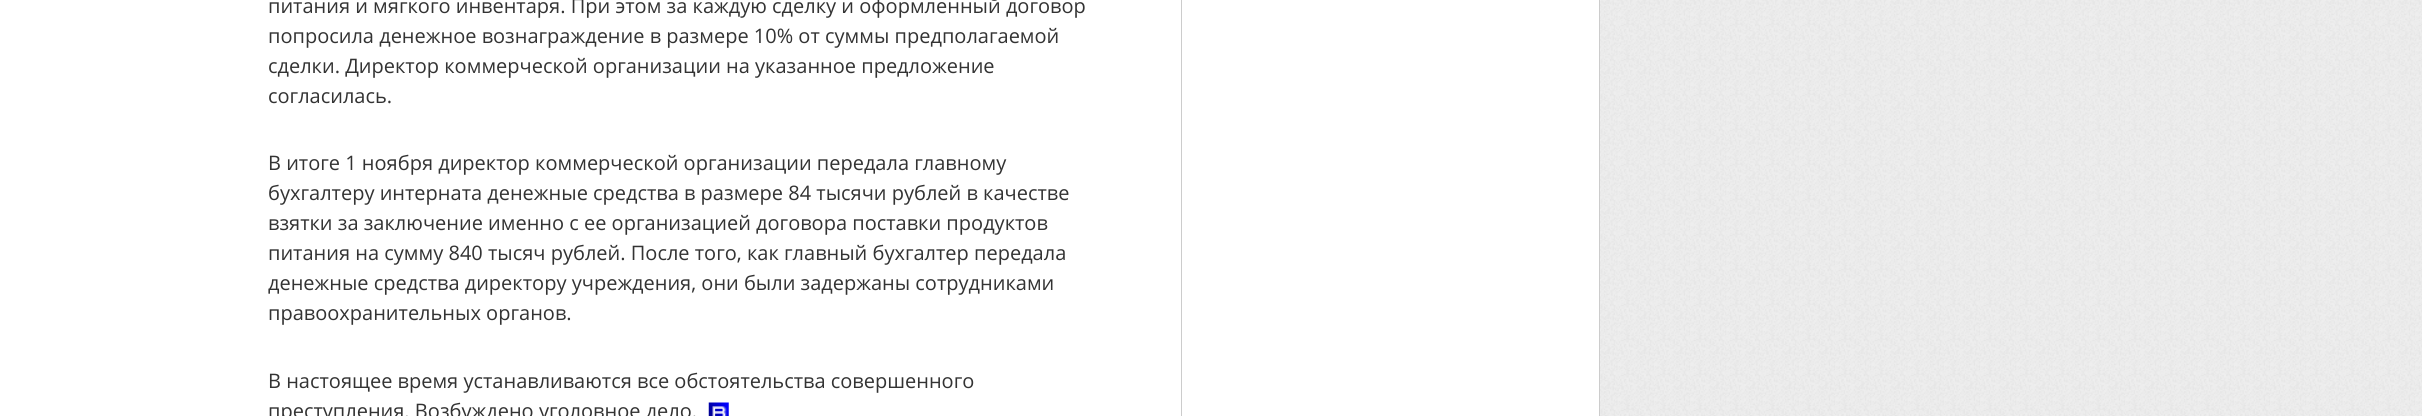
#include <cairo.h>
#include <math.h>
#include <stddef.h>

static cairo_t *ctx;

static void use_color(int r, int g, int b) {
    cairo_set_source_rgb(ctx, r / 255.0, g / 255.0, b / 255.0);
}

static void picture(const char *path, double x, double y, double w, double h) {
    cairo_surface_t *image = cairo_image_surface_create_from_png(path);
    cairo_save(ctx);
    cairo_set_source_surface(ctx, image, x, y);
    cairo_rectangle(ctx, x, y, w, h);
    cairo_fill(ctx);
    cairo_restore(ctx);
    cairo_surface_destroy(image);
}

int main(void) {
    cairo_surface_t *surface = cairo_image_surface_create(CAIRO_FORMAT_RGB24, 2422, 416);
    ctx = cairo_create(surface);
    cairo_font_options_t *options = cairo_font_options_create();
    cairo_font_options_set_hint_metrics(options, CAIRO_HINT_METRICS_OFF);
    cairo_font_options_set_hint_style(options, CAIRO_HINT_STYLE_NONE);
    cairo_set_font_options(ctx, options);
    cairo_set_miter_limit(ctx, 4);
    use_color(255, 255, 255);
    cairo_paint(ctx);
    picture("img1.png", 1600, 0, 822, 416);
    use_color(204, 204, 204);
    cairo_rectangle(ctx, 1599, 0, 1, 416);
    cairo_fill(ctx);
    cairo_rectangle(ctx, 1181, 0, 1, 416);
    cairo_fill(ctx);
    cairo_select_font_face(ctx, "Open Sans", CAIRO_FONT_SLANT_NORMAL, CAIRO_FONT_WEIGHT_NORMAL);
    cairo_set_font_size(ctx, 20);
    use_color(51, 51, 51);
    cairo_move_to(ctx, 268, 13);
    cairo_show_text(ctx, "питания и мягкого инвентаря. При этом за каждую сделку и оформленный договор");
    cairo_move_to(ctx, 268, 43);
    cairo_show_text(ctx, "попросила денежное вознаграждение в размере 10% от суммы предполагаемой");
    cairo_move_to(ctx, 268, 73);
    cairo_show_text(ctx, "сделки. Директор коммерческой организации на указанное предложение");
    cairo_move_to(ctx, 268, 103);
    cairo_show_text(ctx, "согласилась.");
    cairo_move_to(ctx, 268, 170);
    cairo_show_text(ctx, "В итоге 1 ноября директор коммерческой организации передала главному");
    cairo_move_to(ctx, 268, 200);
    cairo_show_text(ctx, "бухгалтеру интерната денежные средства в размере 84 тысячи рублей в качестве");
    cairo_move_to(ctx, 268, 230);
    cairo_show_text(ctx, "взятки за заключение именно с ее организацией договора поставки продуктов");
    cairo_move_to(ctx, 268, 260);
    cairo_show_text(ctx, "питания на сумму 840 тысяч рублей. После того, как главный бухгалтер передала");
    cairo_move_to(ctx, 268, 290);
    cairo_show_text(ctx, "денежные средства директору учреждения, они были задержаны сотрудниками");
    cairo_move_to(ctx, 268, 320);
    cairo_show_text(ctx, "правоохранительных органов.");
    cairo_move_to(ctx, 268, 388);
    cairo_show_text(ctx, "В настоящее время устанавливаются все обстоятельства совершенного");
    cairo_move_to(ctx, 268, 418);
    cairo_show_text(ctx, "преступления. Возбуждено уголовное дело.");
    picture("img2.png", 708, 402, 21, 14);
    cairo_surface_write_to_png(surface, "result.png");
    cairo_font_options_destroy(options);
    cairo_destroy(ctx);
    cairo_surface_destroy(surface);
    return 0;
}
